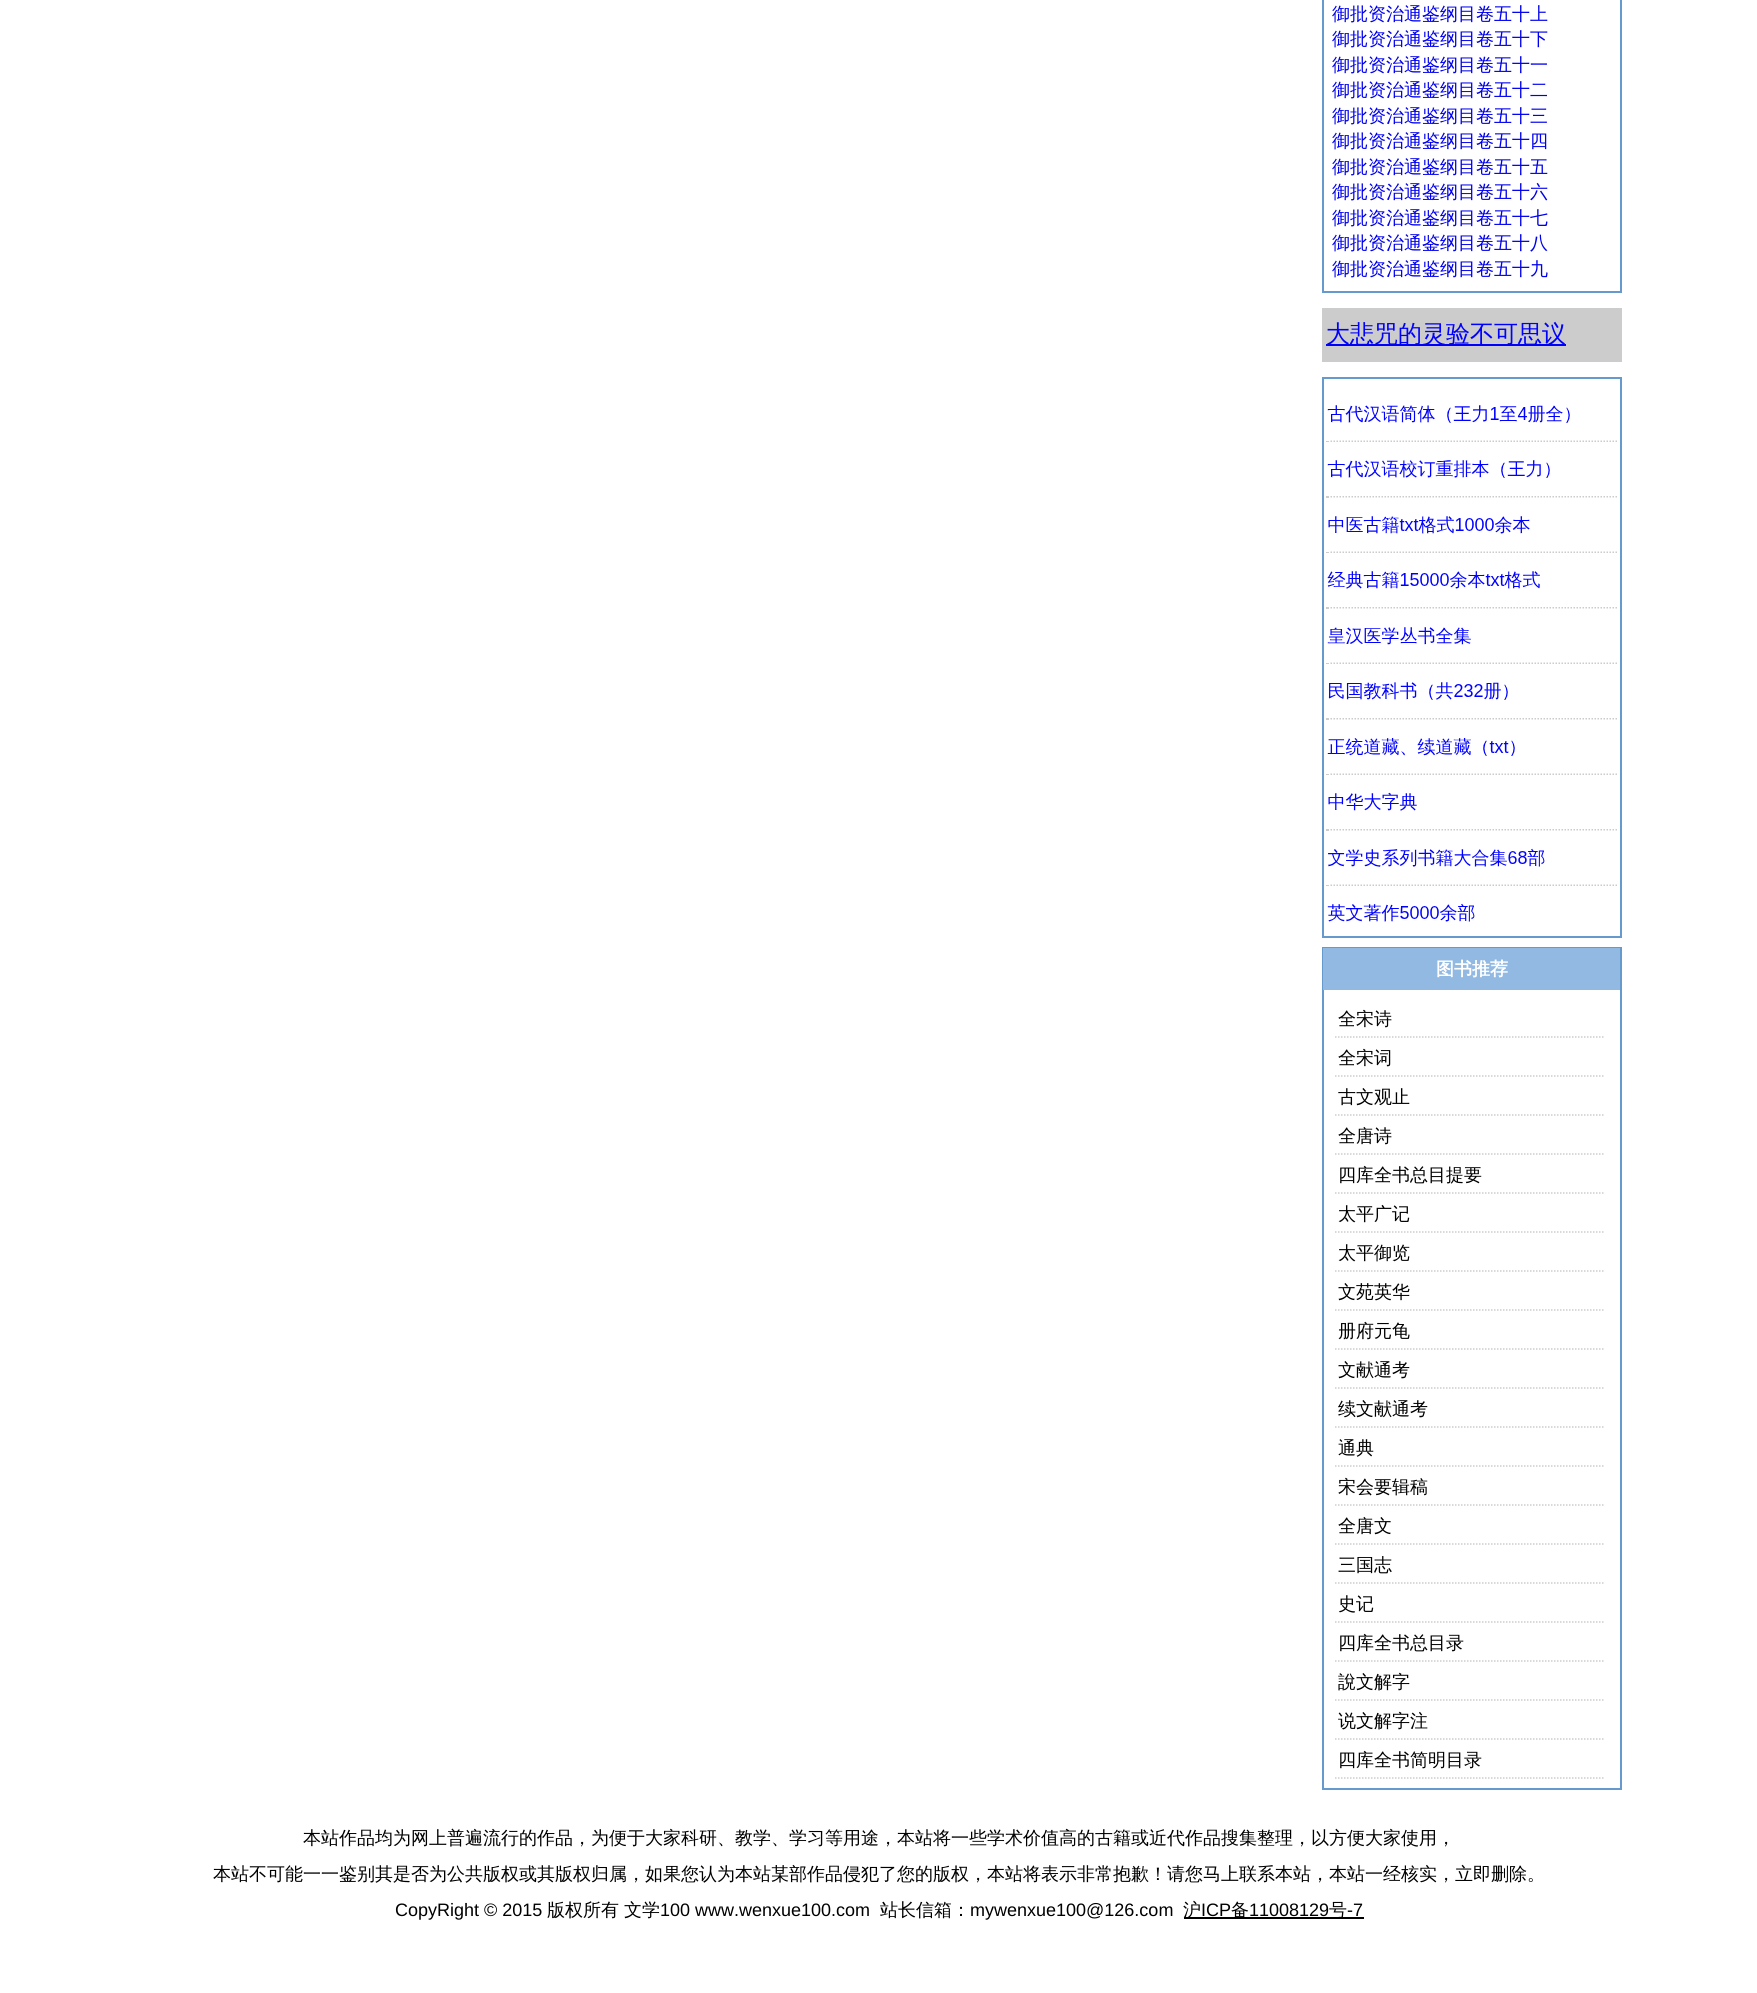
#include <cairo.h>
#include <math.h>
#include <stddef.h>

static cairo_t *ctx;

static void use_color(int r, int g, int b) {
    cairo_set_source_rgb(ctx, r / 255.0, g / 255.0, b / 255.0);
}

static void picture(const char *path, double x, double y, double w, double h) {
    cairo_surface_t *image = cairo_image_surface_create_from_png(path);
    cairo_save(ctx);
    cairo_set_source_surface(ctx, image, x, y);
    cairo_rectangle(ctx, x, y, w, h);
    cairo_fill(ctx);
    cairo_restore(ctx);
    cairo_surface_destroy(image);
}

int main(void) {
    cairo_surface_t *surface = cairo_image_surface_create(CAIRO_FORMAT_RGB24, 1757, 1993);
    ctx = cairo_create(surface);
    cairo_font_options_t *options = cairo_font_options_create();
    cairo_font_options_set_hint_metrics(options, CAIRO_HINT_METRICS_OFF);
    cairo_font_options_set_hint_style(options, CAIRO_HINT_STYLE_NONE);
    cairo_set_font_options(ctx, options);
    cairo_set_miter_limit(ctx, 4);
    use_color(255, 255, 255);
    cairo_paint(ctx);
    cairo_rectangle(ctx, 1323, -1, 298, 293);
    use_color(102, 153, 204);
    cairo_stroke(ctx);
    cairo_select_font_face(ctx, "WenQuanYi Zen Hei Medium", CAIRO_FONT_SLANT_NORMAL, CAIRO_FONT_WEIGHT_NORMAL);
    cairo_set_font_size(ctx, 18);
    use_color(0, 0, 238);
    cairo_move_to(ctx, 1332, 20);
    cairo_show_text(ctx, "御批资治通鉴纲目卷五十上");
    cairo_move_to(ctx, 1332, 45);
    cairo_show_text(ctx, "御批资治通鉴纲目卷五十下");
    cairo_move_to(ctx, 1332, 71);
    cairo_show_text(ctx, "御批资治通鉴纲目卷五十一");
    cairo_move_to(ctx, 1332, 96);
    cairo_show_text(ctx, "御批资治通鉴纲目卷五十二");
    cairo_move_to(ctx, 1332, 122);
    cairo_show_text(ctx, "御批资治通鉴纲目卷五十三");
    cairo_move_to(ctx, 1332, 147);
    cairo_show_text(ctx, "御批资治通鉴纲目卷五十四");
    cairo_move_to(ctx, 1332, 173);
    cairo_show_text(ctx, "御批资治通鉴纲目卷五十五");
    cairo_move_to(ctx, 1332, 198);
    cairo_show_text(ctx, "御批资治通鉴纲目卷五十六");
    cairo_move_to(ctx, 1332, 224);
    cairo_show_text(ctx, "御批资治通鉴纲目卷五十七");
    cairo_move_to(ctx, 1332, 249);
    cairo_show_text(ctx, "御批资治通鉴纲目卷五十八");
    cairo_move_to(ctx, 1332, 275);
    cairo_show_text(ctx, "御批资治通鉴纲目卷五十九");
    use_color(204, 204, 204);
    cairo_rectangle(ctx, 1322, 308, 300, 54);
    cairo_fill(ctx);
    use_color(0, 0, 255);
    cairo_rectangle(ctx, 1326, 344, 240, 2);
    cairo_fill(ctx);
    cairo_set_font_size(ctx, 24);
    cairo_move_to(ctx, 1326, 342);
    cairo_show_text(ctx, "大悲咒的灵验不可思议");
    cairo_rectangle(ctx, 1323, 378, 298, 559);
    use_color(102, 153, 204);
    cairo_stroke(ctx);
    picture("img1.png", 1326, 405, 291, 517);
    cairo_rectangle(ctx, 1323, 948, 298, 841);
    cairo_stroke(ctx);
    use_color(145, 185, 226);
    cairo_rectangle(ctx, 1323, 948, 297, 42);
    cairo_fill(ctx);
    cairo_select_font_face(ctx, "WenQuanYi Zen Hei", CAIRO_FONT_SLANT_NORMAL, CAIRO_FONT_WEIGHT_BOLD);
    cairo_set_font_size(ctx, 18);
    use_color(255, 255, 255);
    cairo_move_to(ctx, 1436, 975);
    cairo_show_text(ctx, "图书推荐");
    cairo_new_path(ctx);
    cairo_move_to(ctx, 1335, 1037);
    cairo_line_to(ctx, 1605, 1037);
    use_color(204, 204, 204);
    cairo_set_line_width(ctx, 1.5);
    cairo_set_dash(ctx, (double[]){1.5, 1.5}, 2, 0);
    cairo_stroke(ctx);
    cairo_select_font_face(ctx, "WenQuanYi Zen Hei Medium", CAIRO_FONT_SLANT_NORMAL, CAIRO_FONT_WEIGHT_NORMAL);
    use_color(0, 0, 0);
    cairo_move_to(ctx, 1338, 1025);
    cairo_show_text(ctx, "全宋诗");
    cairo_new_path(ctx);
    cairo_move_to(ctx, 1335, 1076);
    cairo_line_to(ctx, 1605, 1076);
    use_color(204, 204, 204);
    cairo_stroke(ctx);
    use_color(0, 0, 0);
    cairo_move_to(ctx, 1338, 1064);
    cairo_show_text(ctx, "全宋词");
    cairo_new_path(ctx);
    cairo_move_to(ctx, 1335, 1115);
    cairo_line_to(ctx, 1605, 1115);
    use_color(204, 204, 204);
    cairo_stroke(ctx);
    use_color(0, 0, 0);
    cairo_move_to(ctx, 1338, 1103);
    cairo_show_text(ctx, "古文观止");
    cairo_new_path(ctx);
    cairo_move_to(ctx, 1335, 1154);
    cairo_line_to(ctx, 1605, 1154);
    use_color(204, 204, 204);
    cairo_stroke(ctx);
    use_color(0, 0, 0);
    cairo_move_to(ctx, 1338, 1142);
    cairo_show_text(ctx, "全唐诗");
    cairo_new_path(ctx);
    cairo_move_to(ctx, 1335, 1193);
    cairo_line_to(ctx, 1605, 1193);
    use_color(204, 204, 204);
    cairo_stroke(ctx);
    use_color(0, 0, 0);
    cairo_move_to(ctx, 1338, 1181);
    cairo_show_text(ctx, "四库全书总目提要");
    cairo_new_path(ctx);
    cairo_move_to(ctx, 1335, 1232);
    cairo_line_to(ctx, 1605, 1232);
    use_color(204, 204, 204);
    cairo_stroke(ctx);
    use_color(0, 0, 0);
    cairo_move_to(ctx, 1338, 1220);
    cairo_show_text(ctx, "太平广记");
    cairo_new_path(ctx);
    cairo_move_to(ctx, 1335, 1271);
    cairo_line_to(ctx, 1605, 1271);
    use_color(204, 204, 204);
    cairo_stroke(ctx);
    use_color(0, 0, 0);
    cairo_move_to(ctx, 1338, 1259);
    cairo_show_text(ctx, "太平御览");
    cairo_new_path(ctx);
    cairo_move_to(ctx, 1335, 1310);
    cairo_line_to(ctx, 1605, 1310);
    use_color(204, 204, 204);
    cairo_stroke(ctx);
    use_color(0, 0, 0);
    cairo_move_to(ctx, 1338, 1298);
    cairo_show_text(ctx, "文苑英华");
    cairo_new_path(ctx);
    cairo_move_to(ctx, 1335, 1349);
    cairo_line_to(ctx, 1605, 1349);
    use_color(204, 204, 204);
    cairo_stroke(ctx);
    use_color(0, 0, 0);
    cairo_move_to(ctx, 1338, 1337);
    cairo_show_text(ctx, "册府元龟");
    cairo_new_path(ctx);
    cairo_move_to(ctx, 1335, 1388);
    cairo_line_to(ctx, 1605, 1388);
    use_color(204, 204, 204);
    cairo_stroke(ctx);
    use_color(0, 0, 0);
    cairo_move_to(ctx, 1338, 1376);
    cairo_show_text(ctx, "文献通考");
    cairo_new_path(ctx);
    cairo_move_to(ctx, 1335, 1427);
    cairo_line_to(ctx, 1605, 1427);
    use_color(204, 204, 204);
    cairo_stroke(ctx);
    use_color(0, 0, 0);
    cairo_move_to(ctx, 1338, 1415);
    cairo_show_text(ctx, "续文献通考");
    cairo_new_path(ctx);
    cairo_move_to(ctx, 1335, 1466);
    cairo_line_to(ctx, 1605, 1466);
    use_color(204, 204, 204);
    cairo_stroke(ctx);
    use_color(0, 0, 0);
    cairo_move_to(ctx, 1338, 1454);
    cairo_show_text(ctx, "通典");
    cairo_new_path(ctx);
    cairo_move_to(ctx, 1335, 1505);
    cairo_line_to(ctx, 1605, 1505);
    use_color(204, 204, 204);
    cairo_stroke(ctx);
    use_color(0, 0, 0);
    cairo_move_to(ctx, 1338, 1493);
    cairo_show_text(ctx, "宋会要辑稿");
    cairo_new_path(ctx);
    cairo_move_to(ctx, 1335, 1544);
    cairo_line_to(ctx, 1605, 1544);
    use_color(204, 204, 204);
    cairo_stroke(ctx);
    use_color(0, 0, 0);
    cairo_move_to(ctx, 1338, 1532);
    cairo_show_text(ctx, "全唐文");
    cairo_new_path(ctx);
    cairo_move_to(ctx, 1335, 1583);
    cairo_line_to(ctx, 1605, 1583);
    use_color(204, 204, 204);
    cairo_stroke(ctx);
    use_color(0, 0, 0);
    cairo_move_to(ctx, 1338, 1571);
    cairo_show_text(ctx, "三国志");
    cairo_new_path(ctx);
    cairo_move_to(ctx, 1335, 1622);
    cairo_line_to(ctx, 1605, 1622);
    use_color(204, 204, 204);
    cairo_stroke(ctx);
    use_color(0, 0, 0);
    cairo_move_to(ctx, 1338, 1610);
    cairo_show_text(ctx, "史记");
    cairo_new_path(ctx);
    cairo_move_to(ctx, 1335, 1661);
    cairo_line_to(ctx, 1605, 1661);
    use_color(204, 204, 204);
    cairo_stroke(ctx);
    use_color(0, 0, 0);
    cairo_move_to(ctx, 1338, 1649);
    cairo_show_text(ctx, "四库全书总目录");
    cairo_new_path(ctx);
    cairo_move_to(ctx, 1335, 1700);
    cairo_line_to(ctx, 1605, 1700);
    use_color(204, 204, 204);
    cairo_stroke(ctx);
    use_color(0, 0, 0);
    cairo_move_to(ctx, 1338, 1688);
    cairo_show_text(ctx, "說文解字");
    cairo_new_path(ctx);
    cairo_move_to(ctx, 1335, 1739);
    cairo_line_to(ctx, 1605, 1739);
    use_color(204, 204, 204);
    cairo_stroke(ctx);
    use_color(0, 0, 0);
    cairo_move_to(ctx, 1338, 1727);
    cairo_show_text(ctx, "说文解字注");
    cairo_new_path(ctx);
    cairo_move_to(ctx, 1335, 1778);
    cairo_line_to(ctx, 1605, 1778);
    use_color(204, 204, 204);
    cairo_stroke(ctx);
    use_color(0, 0, 0);
    cairo_move_to(ctx, 1338, 1766);
    cairo_show_text(ctx, "四库全书简明目录");
    cairo_move_to(ctx, 303, 1844);
    cairo_show_text(ctx, "本站作品均为网上普遍流行的作品，为便于大家科研、教学、学习等用途，本站将一些学术价值高的古籍或近代作品搜集整理，以方便大家使用，");
    cairo_move_to(ctx, 213, 1880);
    cairo_show_text(ctx, "本站不可能一一鉴别其是否为公共版权或其版权归属，如果您认为本站某部作品侵犯了您的版权，本站将表示非常抱歉！请您马上联系本站，本站一经核实，立即删除。");
    cairo_select_font_face(ctx, "Liberation Sans", CAIRO_FONT_SLANT_NORMAL, CAIRO_FONT_WEIGHT_NORMAL);
    cairo_move_to(ctx, 395, 1916);
    cairo_show_text(ctx, "CopyRight © 2015");
    cairo_select_font_face(ctx, "WenQuanYi Zen Hei Medium", CAIRO_FONT_SLANT_NORMAL, CAIRO_FONT_WEIGHT_NORMAL);
    cairo_move_to(ctx, 547, 1916);
    cairo_show_text(ctx, "版权所有");
    cairo_move_to(ctx, 624, 1916);
    cairo_show_text(ctx, "文学");
    cairo_select_font_face(ctx, "Liberation Sans", CAIRO_FONT_SLANT_NORMAL, CAIRO_FONT_WEIGHT_NORMAL);
    cairo_move_to(ctx, 660, 1916);
    cairo_show_text(ctx, "100 www.wenxue100.com");
    cairo_select_font_face(ctx, "WenQuanYi Zen Hei Medium", CAIRO_FONT_SLANT_NORMAL, CAIRO_FONT_WEIGHT_NORMAL);
    cairo_move_to(ctx, 880, 1916);
    cairo_show_text(ctx, "站长信箱：");
    cairo_select_font_face(ctx, "Liberation Sans", CAIRO_FONT_SLANT_NORMAL, CAIRO_FONT_WEIGHT_NORMAL);
    cairo_move_to(ctx, 970, 1916);
    cairo_show_text(ctx, "mywenxue100@126.com");
    cairo_rectangle(ctx, 1184, 1917, 180, 2);
    cairo_fill(ctx);
    cairo_select_font_face(ctx, "WenQuanYi Zen Hei Medium", CAIRO_FONT_SLANT_NORMAL, CAIRO_FONT_WEIGHT_NORMAL);
    cairo_move_to(ctx, 1183, 1916);
    cairo_show_text(ctx, "沪");
    cairo_select_font_face(ctx, "Liberation Sans", CAIRO_FONT_SLANT_NORMAL, CAIRO_FONT_WEIGHT_NORMAL);
    cairo_move_to(ctx, 1201, 1916);
    cairo_show_text(ctx, "ICP");
    cairo_select_font_face(ctx, "WenQuanYi Zen Hei Medium", CAIRO_FONT_SLANT_NORMAL, CAIRO_FONT_WEIGHT_NORMAL);
    cairo_move_to(ctx, 1231, 1916);
    cairo_show_text(ctx, "备");
    cairo_select_font_face(ctx, "Liberation Sans", CAIRO_FONT_SLANT_NORMAL, CAIRO_FONT_WEIGHT_NORMAL);
    cairo_move_to(ctx, 1249, 1916);
    cairo_show_text(ctx, "11008129");
    cairo_select_font_face(ctx, "WenQuanYi Zen Hei Medium", CAIRO_FONT_SLANT_NORMAL, CAIRO_FONT_WEIGHT_NORMAL);
    cairo_move_to(ctx, 1329, 1916);
    cairo_show_text(ctx, "号");
    cairo_select_font_face(ctx, "Liberation Sans", CAIRO_FONT_SLANT_NORMAL, CAIRO_FONT_WEIGHT_NORMAL);
    cairo_move_to(ctx, 1347, 1916);
    cairo_show_text(ctx, "-7");
    cairo_surface_write_to_png(surface, "result.png");
    cairo_font_options_destroy(options);
    cairo_destroy(ctx);
    cairo_surface_destroy(surface);
    return 0;
}
